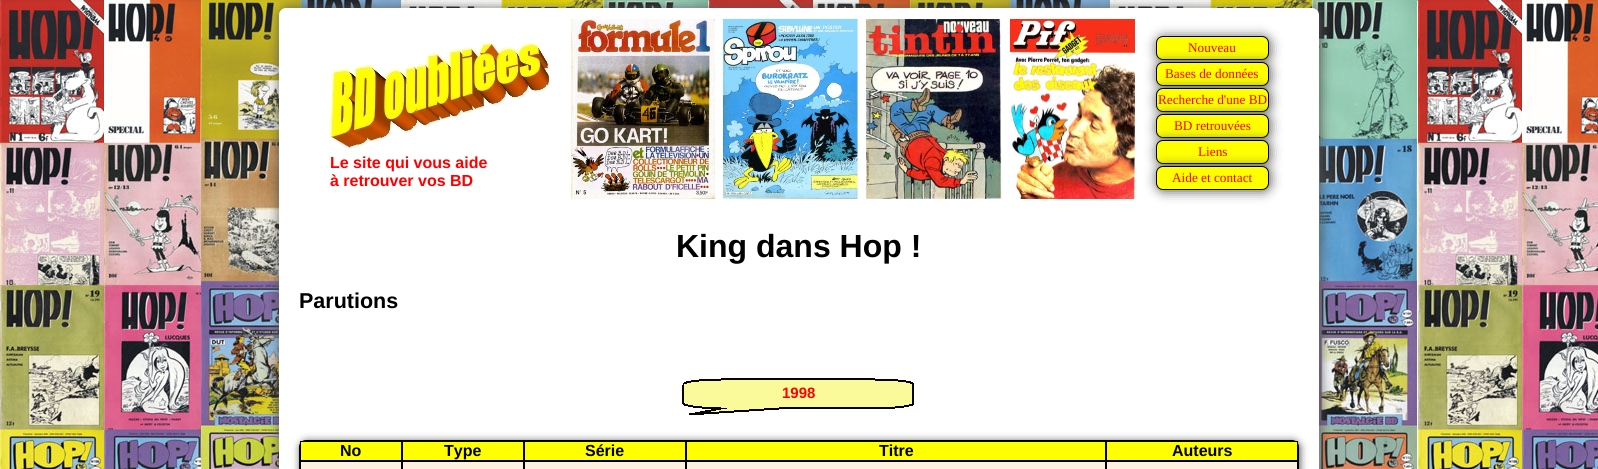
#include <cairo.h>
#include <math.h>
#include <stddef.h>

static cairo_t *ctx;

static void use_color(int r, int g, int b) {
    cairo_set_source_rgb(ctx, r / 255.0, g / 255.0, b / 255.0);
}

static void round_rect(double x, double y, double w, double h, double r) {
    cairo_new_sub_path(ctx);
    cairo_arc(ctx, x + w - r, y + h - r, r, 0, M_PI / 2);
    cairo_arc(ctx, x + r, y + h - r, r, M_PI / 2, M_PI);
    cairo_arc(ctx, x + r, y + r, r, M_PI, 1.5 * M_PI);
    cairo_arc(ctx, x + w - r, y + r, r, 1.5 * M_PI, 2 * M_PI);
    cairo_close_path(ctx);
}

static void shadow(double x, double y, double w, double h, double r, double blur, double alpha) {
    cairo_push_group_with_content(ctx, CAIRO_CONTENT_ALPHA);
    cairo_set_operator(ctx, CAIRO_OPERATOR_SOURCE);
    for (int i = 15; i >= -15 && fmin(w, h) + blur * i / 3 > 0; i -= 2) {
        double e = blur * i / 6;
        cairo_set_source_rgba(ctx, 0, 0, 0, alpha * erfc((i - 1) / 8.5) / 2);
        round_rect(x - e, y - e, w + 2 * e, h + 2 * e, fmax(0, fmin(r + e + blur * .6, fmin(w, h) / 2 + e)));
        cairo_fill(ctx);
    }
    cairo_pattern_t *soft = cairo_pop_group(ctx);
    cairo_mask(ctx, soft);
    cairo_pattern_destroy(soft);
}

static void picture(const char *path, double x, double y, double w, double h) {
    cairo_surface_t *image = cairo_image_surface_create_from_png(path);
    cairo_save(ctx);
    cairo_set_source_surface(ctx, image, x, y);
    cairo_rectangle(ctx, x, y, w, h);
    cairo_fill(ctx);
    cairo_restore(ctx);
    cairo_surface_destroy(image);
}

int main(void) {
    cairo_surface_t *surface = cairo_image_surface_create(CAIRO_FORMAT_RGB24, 1598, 469);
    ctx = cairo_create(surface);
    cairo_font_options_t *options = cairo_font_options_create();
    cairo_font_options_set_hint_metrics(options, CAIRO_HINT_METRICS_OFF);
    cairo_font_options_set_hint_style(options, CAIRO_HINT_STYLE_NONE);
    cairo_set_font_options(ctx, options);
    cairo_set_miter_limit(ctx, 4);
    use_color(255, 255, 255);
    cairo_paint(ctx);
    picture("img1.png", 0, 0, 1598, 469);
    use_color(85, 85, 85);
    shadow(280, 9, 1040, 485, 7, 6, 1);
    use_color(255, 255, 255);
    round_rect(279, 8, 1040, 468, 7);
    cairo_fill(ctx);
    use_color(85, 85, 85);
    shadow(1157, 37, 113, 24, 7, 6, 1);
    use_color(255, 255, 0);
    round_rect(1156.5, 36.5, 112, 23, 6.5);
    cairo_fill_preserve(ctx);
    use_color(0, 0, 0);
    cairo_set_line_width(ctx, 1);
    cairo_stroke(ctx);
    use_color(85, 85, 85);
    shadow(1157, 63, 113, 24, 7, 6, 1);
    cairo_select_font_face(ctx, "Liberation Serif", CAIRO_FONT_SLANT_NORMAL, CAIRO_FONT_WEIGHT_NORMAL);
    cairo_set_font_size(ctx, 13.25);
    use_color(255, 0, 0);
    cairo_move_to(ctx, 1188, 52);
    cairo_show_text(ctx, "Nouveau");
    use_color(255, 255, 0);
    round_rect(1156.5, 62.5, 112, 23, 6.5);
    cairo_fill_preserve(ctx);
    use_color(0, 0, 0);
    cairo_stroke(ctx);
    use_color(85, 85, 85);
    shadow(1157, 89, 113, 24, 7, 6, 1);
    use_color(255, 0, 0);
    cairo_move_to(ctx, 1165, 78);
    cairo_show_text(ctx, "Bases de données");
    use_color(255, 255, 0);
    round_rect(1156.5, 88.5, 112, 23, 6.5);
    cairo_fill_preserve(ctx);
    use_color(0, 0, 0);
    cairo_stroke(ctx);
    use_color(85, 85, 85);
    shadow(1157, 115, 113, 24, 7, 6, 1);
    use_color(255, 0, 0);
    cairo_move_to(ctx, 1158, 104);
    cairo_show_text(ctx, "Recherche d'une BD");
    use_color(255, 255, 0);
    round_rect(1156.5, 114.5, 112, 23, 6.5);
    cairo_fill_preserve(ctx);
    use_color(0, 0, 0);
    cairo_stroke(ctx);
    use_color(85, 85, 85);
    shadow(1157, 141, 113, 24, 7, 6, 1);
    use_color(255, 0, 0);
    cairo_move_to(ctx, 1174, 130);
    cairo_show_text(ctx, "BD retrouvées");
    use_color(255, 255, 0);
    round_rect(1156.5, 140.5, 112, 23, 6.5);
    cairo_fill_preserve(ctx);
    use_color(0, 0, 0);
    cairo_stroke(ctx);
    use_color(85, 85, 85);
    shadow(1157, 167, 113, 24, 7, 6, 1);
    use_color(255, 0, 0);
    cairo_move_to(ctx, 1198, 156);
    cairo_show_text(ctx, "Liens");
    picture("img2.png", 330, 42, 219, 107);
    cairo_select_font_face(ctx, "Liberation Sans", CAIRO_FONT_SLANT_NORMAL, CAIRO_FONT_WEIGHT_BOLD);
    cairo_set_font_size(ctx, 16);
    cairo_move_to(ctx, 330, 168);
    cairo_show_text(ctx, "Le site qui vous aide");
    cairo_move_to(ctx, 330, 186);
    cairo_show_text(ctx, "à retrouver vos BD");
    picture("img3.png", 571, 19, 564, 180);
    use_color(255, 255, 0);
    round_rect(1156.5, 166.5, 112, 23, 6.5);
    cairo_fill_preserve(ctx);
    use_color(0, 0, 0);
    cairo_stroke(ctx);
    cairo_select_font_face(ctx, "Liberation Serif", CAIRO_FONT_SLANT_NORMAL, CAIRO_FONT_WEIGHT_NORMAL);
    cairo_set_font_size(ctx, 13.25);
    use_color(255, 0, 0);
    cairo_move_to(ctx, 1172, 182);
    cairo_show_text(ctx, "Aide et contact");
    cairo_select_font_face(ctx, "Liberation Sans", CAIRO_FONT_SLANT_NORMAL, CAIRO_FONT_WEIGHT_BOLD);
    cairo_set_font_size(ctx, 32);
    use_color(0, 0, 0);
    cairo_move_to(ctx, 676, 257);
    cairo_show_text(ctx, "King dans Hop !");
    cairo_set_font_size(ctx, 21.5);
    cairo_move_to(ctx, 299, 308);
    cairo_show_text(ctx, "Parutions");
    picture("img4.png", 678, 373, 242, 42);
    cairo_set_font_size(ctx, 15);
    use_color(255, 0, 0);
    cairo_move_to(ctx, 782, 398);
    cairo_show_text(ctx, "1998");
    use_color(85, 85, 85);
    shadow(300, 441, 1000, 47, 7, 4, 1);
    round_rect(299.5, 440.5, 999, 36, 6.5);
    use_color(0, 0, 0);
    cairo_stroke(ctx);
    use_color(255, 255, 0);
    cairo_rectangle(ctx, 300.5, 441.5, 101, 19);
    cairo_fill_preserve(ctx);
    use_color(0, 0, 0);
    cairo_stroke(ctx);
    cairo_set_font_size(ctx, 16);
    cairo_move_to(ctx, 340, 456);
    cairo_show_text(ctx, "No");
    use_color(255, 255, 0);
    cairo_rectangle(ctx, 402.5, 441.5, 121, 19);
    cairo_fill_preserve(ctx);
    use_color(0, 0, 0);
    cairo_stroke(ctx);
    cairo_move_to(ctx, 444, 456);
    cairo_show_text(ctx, "Type");
    use_color(255, 255, 0);
    cairo_rectangle(ctx, 524.5, 441.5, 161, 19);
    cairo_fill_preserve(ctx);
    use_color(0, 0, 0);
    cairo_stroke(ctx);
    cairo_move_to(ctx, 585, 456);
    cairo_show_text(ctx, "Série");
    use_color(255, 255, 0);
    cairo_rectangle(ctx, 686.5, 441.5, 419, 19);
    cairo_fill_preserve(ctx);
    use_color(0, 0, 0);
    cairo_stroke(ctx);
    cairo_move_to(ctx, 879, 456);
    cairo_show_text(ctx, "Titre");
    use_color(255, 255, 0);
    cairo_rectangle(ctx, 1106.5, 441.5, 191, 19);
    cairo_fill_preserve(ctx);
    use_color(0, 0, 0);
    cairo_stroke(ctx);
    cairo_move_to(ctx, 1172, 456);
    cairo_show_text(ctx, "Auteurs");
    use_color(254, 240, 224);
    cairo_rectangle(ctx, 300, 462, 998, 7);
    cairo_fill(ctx);
    cairo_rectangle(ctx, 300.5, 461.5, 101, 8);
    use_color(0, 0, 0);
    cairo_stroke(ctx);
    cairo_rectangle(ctx, 402.5, 461.5, 121, 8);
    cairo_stroke(ctx);
    cairo_rectangle(ctx, 524.5, 461.5, 161, 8);
    cairo_stroke(ctx);
    cairo_rectangle(ctx, 686.5, 461.5, 419, 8);
    cairo_stroke(ctx);
    cairo_rectangle(ctx, 1106.5, 461.5, 191, 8);
    cairo_stroke(ctx);
    cairo_surface_write_to_png(surface, "result.png");
    cairo_font_options_destroy(options);
    cairo_destroy(ctx);
    cairo_surface_destroy(surface);
    return 0;
}
